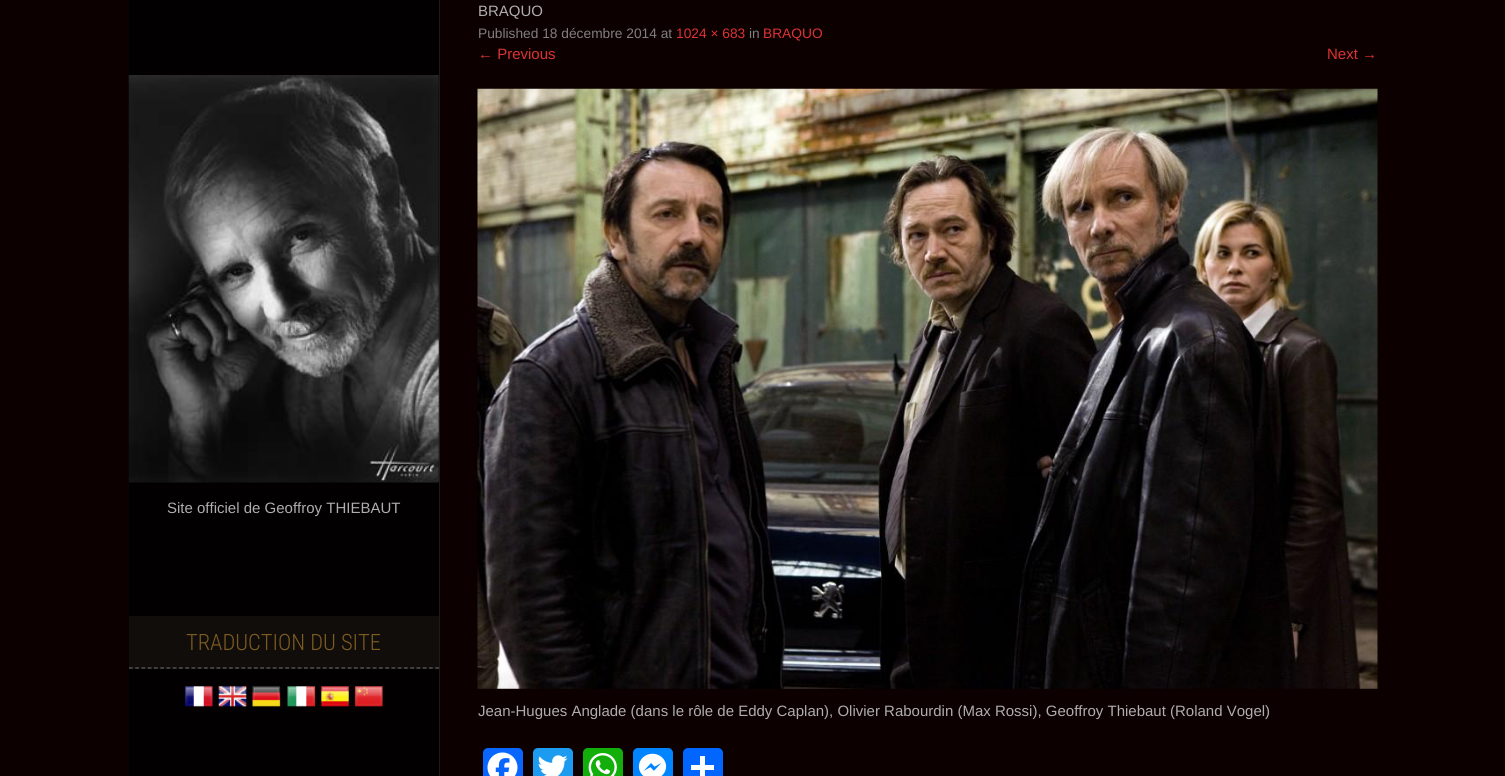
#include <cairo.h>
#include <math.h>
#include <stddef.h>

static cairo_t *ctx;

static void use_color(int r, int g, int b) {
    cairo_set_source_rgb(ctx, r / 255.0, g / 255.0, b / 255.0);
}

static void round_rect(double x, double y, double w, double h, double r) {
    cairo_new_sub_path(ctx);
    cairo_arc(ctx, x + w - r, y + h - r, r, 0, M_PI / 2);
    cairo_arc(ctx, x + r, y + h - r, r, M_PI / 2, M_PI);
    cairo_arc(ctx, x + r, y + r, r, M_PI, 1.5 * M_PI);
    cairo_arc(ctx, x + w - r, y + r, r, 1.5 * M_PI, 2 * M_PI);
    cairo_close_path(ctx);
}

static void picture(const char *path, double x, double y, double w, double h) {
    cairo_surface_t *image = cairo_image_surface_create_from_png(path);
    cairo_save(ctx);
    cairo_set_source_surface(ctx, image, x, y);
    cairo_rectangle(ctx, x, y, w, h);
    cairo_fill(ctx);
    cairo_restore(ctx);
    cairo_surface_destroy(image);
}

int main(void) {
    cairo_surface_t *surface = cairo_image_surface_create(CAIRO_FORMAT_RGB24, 1505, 776);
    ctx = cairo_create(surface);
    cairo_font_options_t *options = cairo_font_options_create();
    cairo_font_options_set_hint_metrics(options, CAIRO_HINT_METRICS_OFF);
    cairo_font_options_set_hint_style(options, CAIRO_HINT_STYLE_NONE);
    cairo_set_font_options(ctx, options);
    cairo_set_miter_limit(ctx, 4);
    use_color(12, 0, 0);
    cairo_paint(ctx);
    use_color(2, 0, 0);
    cairo_rectangle(ctx, 129, 0, 310, 776);
    cairo_fill(ctx);
    use_color(27, 27, 27);
    cairo_rectangle(ctx, 439, 0, 1, 776);
    cairo_fill(ctx);
    use_color(4, 4, 4);
    cairo_rectangle(ctx, 128, 0, 1, 776);
    cairo_fill(ctx);
    picture("img1.png", 128, 75, 311, 408);
    cairo_select_font_face(ctx, "Liberation Sans", CAIRO_FONT_SLANT_NORMAL, CAIRO_FONT_WEIGHT_NORMAL);
    cairo_set_font_size(ctx, 15);
    use_color(174, 174, 174);
    cairo_move_to(ctx, 167, 513);
    cairo_show_text(ctx, "Site officiel de Geoffroy THIEBAUT");
    use_color(16, 13, 10);
    cairo_rectangle(ctx, 129, 616, 310, 53);
    cairo_fill(ctx);
    cairo_new_path(ctx);
    cairo_move_to(ctx, 129, 668);
    cairo_line_to(ctx, 439, 668);
    use_color(96, 98, 102);
    cairo_set_line_width(ctx, 1.2);
    cairo_set_dash(ctx, (double[]){3.75, 2.5}, 2, 0);
    cairo_stroke(ctx);
    cairo_select_font_face(ctx, "Roboto Condensed Light", CAIRO_FONT_SLANT_NORMAL, CAIRO_FONT_WEIGHT_NORMAL);
    cairo_set_font_size(ctx, 22.5);
    use_color(126, 91, 32);
    cairo_move_to(ctx, 186, 650);
    cairo_show_text(ctx, "TRADUCTION DU SITE");
    picture("img2.png", 184, 686, 29, 21);
    picture("img3.png", 218, 686, 29, 21);
    picture("img4.png", 252, 686, 29, 21);
    picture("img5.png", 287, 686, 29, 21);
    picture("img6.png", 321, 686, 28, 21);
    picture("img7.png", 354, 686, 29, 21);
    cairo_select_font_face(ctx, "Liberation Sans", CAIRO_FONT_SLANT_NORMAL, CAIRO_FONT_WEIGHT_NORMAL);
    cairo_set_font_size(ctx, 15);
    use_color(174, 174, 174);
    cairo_move_to(ctx, 478, 16);
    cairo_show_text(ctx, "BRAQUO");
    cairo_set_font_size(ctx, 13.75);
    use_color(128, 128, 128);
    cairo_move_to(ctx, 478, 38);
    cairo_show_text(ctx, "Published 18 décembre 2014 at");
    use_color(221, 51, 51);
    cairo_move_to(ctx, 676, 38);
    cairo_show_text(ctx, "1024 × 683");
    use_color(128, 128, 128);
    cairo_move_to(ctx, 749, 38);
    cairo_show_text(ctx, "in");
    use_color(221, 51, 51);
    cairo_move_to(ctx, 763, 38);
    cairo_show_text(ctx, "BRAQUO");
    cairo_set_font_size(ctx, 15);
    cairo_move_to(ctx, 478, 59);
    cairo_show_text(ctx, "← Previous");
    cairo_move_to(ctx, 1327, 59);
    cairo_show_text(ctx, "Next →");
    picture("img8.png", 477, 88, 901, 601);
    use_color(174, 174, 174);
    cairo_move_to(ctx, 478, 716);
    cairo_show_text(ctx, "Jean-Hugues Anglade (dans le rôle de Eddy Caplan), Olivier Rabourdin (Max Rossi), Geoffroy Thiebaut (Roland Vogel)");
    use_color(8, 102, 255);
    round_rect(483, 748, 40, 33, 5);
    cairo_fill(ctx);
    picture("img9.png", 487, 752, 31, 24);
    use_color(29, 155, 240);
    round_rect(533, 748, 40, 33, 5);
    cairo_fill(ctx);
    picture("img10.png", 538, 755, 30, 21);
    use_color(18, 175, 10);
    round_rect(583, 748, 40, 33, 5);
    cairo_fill(ctx);
    picture("img11.png", 588, 753, 29, 23);
    use_color(0, 132, 255);
    round_rect(633, 748, 40, 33, 5);
    cairo_fill(ctx);
    picture("img12.png", 638, 753, 29, 23);
    use_color(1, 102, 255);
    round_rect(683, 748, 40, 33, 5);
    cairo_fill(ctx);
    use_color(255, 255, 255);
    cairo_rectangle(ctx, 700, 756, 5, 20);
    cairo_fill(ctx);
    cairo_rectangle(ctx, 691, 765, 23, 5);
    cairo_fill(ctx);
    cairo_surface_write_to_png(surface, "result.png");
    cairo_font_options_destroy(options);
    cairo_destroy(ctx);
    cairo_surface_destroy(surface);
    return 0;
}
